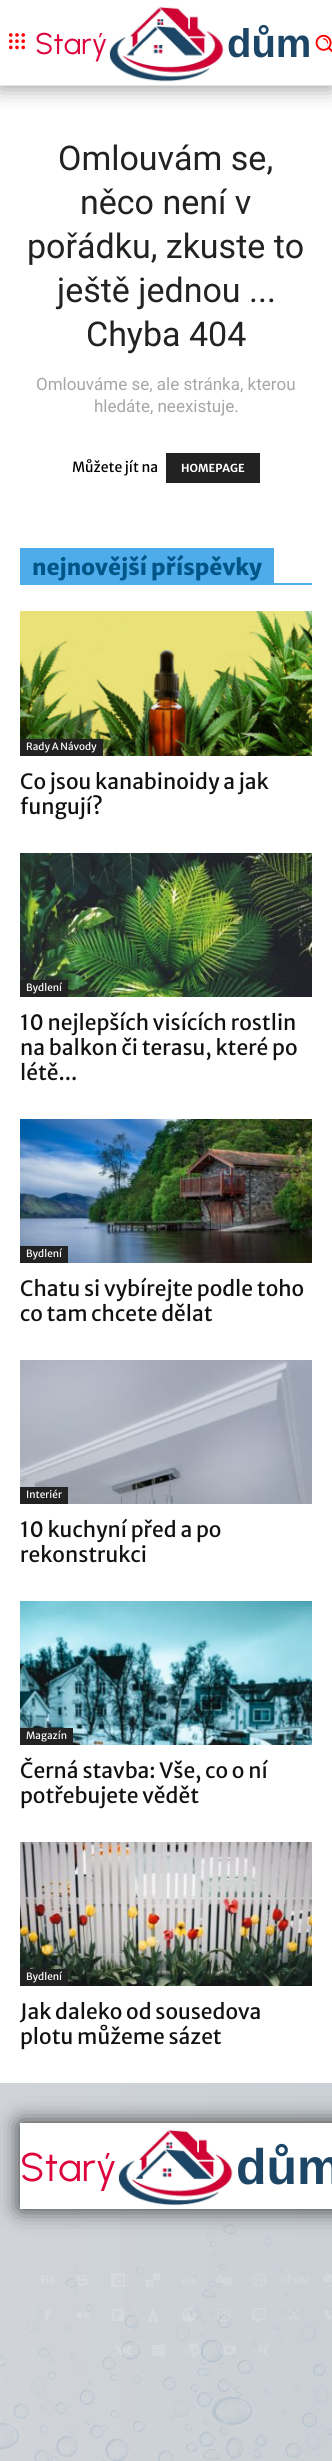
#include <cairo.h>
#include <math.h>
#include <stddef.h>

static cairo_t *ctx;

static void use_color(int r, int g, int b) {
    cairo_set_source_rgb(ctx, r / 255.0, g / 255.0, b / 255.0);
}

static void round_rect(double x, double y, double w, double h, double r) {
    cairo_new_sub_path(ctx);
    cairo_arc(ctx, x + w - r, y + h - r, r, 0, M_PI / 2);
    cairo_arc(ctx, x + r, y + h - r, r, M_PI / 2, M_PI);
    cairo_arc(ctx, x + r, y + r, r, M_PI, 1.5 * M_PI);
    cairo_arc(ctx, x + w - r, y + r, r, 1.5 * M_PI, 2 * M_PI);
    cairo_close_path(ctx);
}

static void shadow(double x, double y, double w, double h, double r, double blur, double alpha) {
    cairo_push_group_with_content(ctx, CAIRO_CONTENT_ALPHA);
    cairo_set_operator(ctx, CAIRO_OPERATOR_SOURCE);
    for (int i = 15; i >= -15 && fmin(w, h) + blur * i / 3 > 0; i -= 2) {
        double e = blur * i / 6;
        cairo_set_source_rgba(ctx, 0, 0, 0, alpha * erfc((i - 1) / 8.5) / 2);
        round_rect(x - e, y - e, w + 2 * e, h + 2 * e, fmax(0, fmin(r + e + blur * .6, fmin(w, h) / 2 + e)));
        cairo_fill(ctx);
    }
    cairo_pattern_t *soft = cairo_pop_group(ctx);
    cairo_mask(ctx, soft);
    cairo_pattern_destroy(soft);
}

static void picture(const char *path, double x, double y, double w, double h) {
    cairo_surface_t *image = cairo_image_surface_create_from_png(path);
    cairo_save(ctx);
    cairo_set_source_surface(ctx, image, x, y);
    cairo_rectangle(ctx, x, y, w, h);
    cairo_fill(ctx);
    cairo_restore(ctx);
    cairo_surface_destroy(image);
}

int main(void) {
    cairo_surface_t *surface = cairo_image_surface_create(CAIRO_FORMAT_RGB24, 332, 2461);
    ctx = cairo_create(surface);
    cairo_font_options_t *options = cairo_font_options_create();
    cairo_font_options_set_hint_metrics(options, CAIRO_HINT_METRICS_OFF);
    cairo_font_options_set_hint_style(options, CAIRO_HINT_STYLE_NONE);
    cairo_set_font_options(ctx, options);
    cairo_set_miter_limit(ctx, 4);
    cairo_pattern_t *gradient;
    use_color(255, 255, 255);
    cairo_paint(ctx);
    cairo_save(ctx);
    cairo_rectangle(ctx, 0, 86, 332, 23);
    cairo_clip(ctx);
    use_color(136, 136, 136);
    shadow(0, 0, 332, 86, 0, 11, 1);
    cairo_restore(ctx);
    use_color(229, 229, 229);
    cairo_rectangle(ctx, 0, 85, 332, 1);
    cairo_fill(ctx);
    picture("img1.png", 8, 33, 17, 17);
    cairo_select_font_face(ctx, "Urbanist", CAIRO_FONT_SLANT_NORMAL, CAIRO_FONT_WEIGHT_NORMAL);
    cairo_set_font_size(ctx, 30);
    use_color(221, 2, 60);
    cairo_move_to(ctx, 35, 54);
    cairo_show_text(ctx, "Starý");
    picture("img2.png", 109, 6, 115, 76);
    cairo_select_font_face(ctx, "Liberation Sans", CAIRO_FONT_SLANT_NORMAL, CAIRO_FONT_WEIGHT_BOLD);
    cairo_set_font_size(ctx, 40);
    use_color(29, 69, 102);
    cairo_move_to(ctx, 227, 57);
    cairo_show_text(ctx, "dům");
    picture("img3.png", 315, 34, 17, 19);
    cairo_select_font_face(ctx, "Roboto", CAIRO_FONT_SLANT_NORMAL, CAIRO_FONT_WEIGHT_NORMAL);
    cairo_set_font_size(ctx, 34);
    use_color(34, 34, 34);
    cairo_move_to(ctx, 58, 170);
    cairo_show_text(ctx, "Omlouvám se,");
    cairo_move_to(ctx, 80, 214);
    cairo_show_text(ctx, "něco není v");
    cairo_move_to(ctx, 27, 258);
    cairo_show_text(ctx, "pořádku, zkuste to");
    cairo_move_to(ctx, 57, 302);
    cairo_show_text(ctx, "ještě jednou ...");
    cairo_move_to(ctx, 86, 346);
    cairo_show_text(ctx, "Chyba 404");
    cairo_set_font_size(ctx, 17);
    use_color(166, 166, 166);
    cairo_move_to(ctx, 36, 390);
    cairo_show_text(ctx, "Omlouváme se, ale stránka, kterou");
    cairo_move_to(ctx, 94, 412);
    cairo_show_text(ctx, "hledáte, neexistuje.");
    cairo_select_font_face(ctx, "Merriweather Sans", CAIRO_FONT_SLANT_NORMAL, CAIRO_FONT_WEIGHT_NORMAL);
    cairo_set_font_size(ctx, 14);
    use_color(0, 0, 0);
    cairo_move_to(ctx, 72, 472);
    cairo_show_text(ctx, "Můžete jít na");
    use_color(34, 34, 34);
    cairo_rectangle(ctx, 166, 453, 94, 30);
    cairo_fill(ctx);
    cairo_select_font_face(ctx, "Merriweather Sans", CAIRO_FONT_SLANT_NORMAL, CAIRO_FONT_WEIGHT_BOLD);
    cairo_set_font_size(ctx, 11);
    use_color(255, 255, 255);
    cairo_move_to(ctx, 181, 472);
    cairo_show_text(ctx, "HOMEPAGE");
    use_color(79, 172, 234);
    cairo_rectangle(ctx, 20, 583, 292, 2);
    cairo_fill(ctx);
    cairo_rectangle(ctx, 20, 548, 254, 35);
    cairo_fill(ctx);
    cairo_select_font_face(ctx, "Merriweather Sans ExtraBold", CAIRO_FONT_SLANT_NORMAL, CAIRO_FONT_WEIGHT_NORMAL);
    cairo_set_font_size(ctx, 22);
    use_color(0, 86, 137);
    cairo_move_to(ctx, 32, 575);
    cairo_show_text(ctx, "nejnovější příspěvky");
    picture("img4.png", 20, 611, 292, 145);
    use_color(34, 34, 34);
    cairo_rectangle(ctx, 20, 739, 83, 17);
    cairo_fill(ctx);
    cairo_select_font_face(ctx, "Merriweather Sans", CAIRO_FONT_SLANT_NORMAL, CAIRO_FONT_WEIGHT_NORMAL);
    cairo_set_font_size(ctx, 10);
    use_color(255, 255, 255);
    cairo_move_to(ctx, 26, 750);
    cairo_show_text(ctx, "Rady A Návody");
    cairo_set_font_size(ctx, 21);
    use_color(17, 17, 17);
    cairo_move_to(ctx, 20, 789);
    cairo_show_text(ctx, "Co jsou kanabinoidy a jak");
    cairo_move_to(ctx, 20, 814);
    cairo_show_text(ctx, "fungují?");
    picture("img5.png", 20, 853, 292, 144);
    use_color(34, 34, 34);
    cairo_rectangle(ctx, 20, 980, 48, 17);
    cairo_fill(ctx);
    cairo_set_font_size(ctx, 10);
    use_color(255, 255, 255);
    cairo_move_to(ctx, 26, 991);
    cairo_show_text(ctx, "Bydlení");
    cairo_set_font_size(ctx, 21);
    use_color(17, 17, 17);
    cairo_move_to(ctx, 20, 1030);
    cairo_show_text(ctx, "10 nejlepších visících rostlin");
    cairo_move_to(ctx, 20, 1055);
    cairo_show_text(ctx, "na balkon či terasu, které po");
    cairo_move_to(ctx, 20, 1080);
    cairo_show_text(ctx, "létě...");
    picture("img6.png", 20, 1119, 292, 144);
    use_color(34, 34, 34);
    cairo_rectangle(ctx, 20, 1246, 48, 17);
    cairo_fill(ctx);
    cairo_set_font_size(ctx, 10);
    use_color(255, 255, 255);
    cairo_move_to(ctx, 26, 1257);
    cairo_show_text(ctx, "Bydlení");
    cairo_set_font_size(ctx, 21);
    use_color(17, 17, 17);
    cairo_move_to(ctx, 20, 1296);
    cairo_show_text(ctx, "Chatu si vybírejte podle toho");
    cairo_move_to(ctx, 20, 1321);
    cairo_show_text(ctx, "co tam chcete dělat");
    picture("img7.png", 20, 1360, 292, 144);
    use_color(34, 34, 34);
    cairo_rectangle(ctx, 20, 1487, 48, 17);
    cairo_fill(ctx);
    cairo_set_font_size(ctx, 10);
    use_color(255, 255, 255);
    cairo_move_to(ctx, 26, 1498);
    cairo_show_text(ctx, "Interiér");
    cairo_set_font_size(ctx, 21);
    use_color(17, 17, 17);
    cairo_move_to(ctx, 20, 1537);
    cairo_show_text(ctx, "10 kuchyní před a po");
    cairo_move_to(ctx, 20, 1562);
    cairo_show_text(ctx, "rekonstrukci");
    picture("img8.png", 20, 1601, 292, 144);
    use_color(34, 34, 34);
    cairo_rectangle(ctx, 20, 1728, 53, 17);
    cairo_fill(ctx);
    cairo_set_font_size(ctx, 10);
    use_color(255, 255, 255);
    cairo_move_to(ctx, 26, 1739);
    cairo_show_text(ctx, "Magazín");
    cairo_set_font_size(ctx, 21);
    use_color(17, 17, 17);
    cairo_move_to(ctx, 20, 1778);
    cairo_show_text(ctx, "Černá stavba: Vše, co o ní");
    cairo_move_to(ctx, 20, 1803);
    cairo_show_text(ctx, "potřebujete vědět");
    picture("img9.png", 20, 1842, 292, 144);
    use_color(34, 34, 34);
    cairo_rectangle(ctx, 20, 1969, 48, 17);
    cairo_fill(ctx);
    cairo_set_font_size(ctx, 10);
    use_color(255, 255, 255);
    cairo_move_to(ctx, 26, 1980);
    cairo_show_text(ctx, "Bydlení");
    cairo_set_font_size(ctx, 21);
    use_color(17, 17, 17);
    cairo_move_to(ctx, 20, 2019);
    cairo_show_text(ctx, "Jak daleko od sousedova");
    cairo_move_to(ctx, 20, 2044);
    cairo_show_text(ctx, "plotu můžeme sázet");
    gradient = cairo_pattern_create_linear(332, 2344, 0, 2344);
    cairo_pattern_add_color_stop_rgba(gradient, 0, 0.792, 0.816, 0.835, 1);
    cairo_pattern_add_color_stop_rgba(gradient, 1, 0.816, 0.831, 0.851, 1);
    cairo_set_source(ctx, gradient);
    cairo_pattern_destroy(gradient);
    cairo_rectangle(ctx, 0, 2083, 332, 378);
    cairo_fill(ctx);
    picture("img34.png", 0, 2209, 332, 252);
    use_color(48, 48, 48);
    shadow(20, 2123, 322, 86, 0, 11, 1);
    use_color(255, 255, 255);
    cairo_rectangle(ctx, 20, 2123, 312, 86);
    cairo_fill(ctx);
    cairo_select_font_face(ctx, "Urbanist", CAIRO_FONT_SLANT_NORMAL, CAIRO_FONT_WEIGHT_NORMAL);
    cairo_set_font_size(ctx, 40);
    use_color(221, 2, 60);
    cairo_move_to(ctx, 20, 2181);
    cairo_show_text(ctx, "Starý");
    picture("img10.png", 118, 2129, 115, 77);
    cairo_select_font_face(ctx, "Liberation Sans", CAIRO_FONT_SLANT_NORMAL, CAIRO_FONT_WEIGHT_BOLD);
    cairo_set_font_size(ctx, 50);
    use_color(29, 69, 102);
    cairo_move_to(ctx, 236, 2184);
    cairo_show_text(ctx, "dům");
    picture("img11.png", 41, 2275, 14, 10);
    picture("img12.png", 77, 2275, 11, 11);
    picture("img13.png", 111, 2273, 14, 14);
    picture("img14.png", 146, 2273, 14, 14);
    picture("img15.png", 182, 2277, 14, 6);
    picture("img16.png", 216, 2275, 16, 10);
    picture("img17.png", 252, 2273, 14, 14);
    picture("img18.png", 281, 2274, 29, 12);
    picture("img19.png", 323, 2273, 9, 14);
    picture("img20.png", 44, 2309, 7, 12);
    picture("img21.png", 77, 2312, 13, 6);
    picture("img22.png", 112, 2309, 12, 12);
    picture("img23.png", 147, 2309, 11, 13);
    picture("img24.png", 182, 2308, 14, 14);
    picture("img25.png", 218, 2309, 12, 12);
    picture("img26.png", 252, 2308, 14, 14);
    picture("img27.png", 288, 2309, 11, 12);
    picture("img28.png", 323, 2310, 9, 11);
    picture("img29.png", 115, 2345, 17, 10);
    picture("img30.png", 152, 2344, 13, 13);
    picture("img31.png", 187, 2343, 14, 14);
    picture("img32.png", 222, 2345, 14, 10);
    picture("img33.png", 258, 2343, 12, 14);
    cairo_surface_write_to_png(surface, "result.png");
    cairo_font_options_destroy(options);
    cairo_destroy(ctx);
    cairo_surface_destroy(surface);
    return 0;
}
